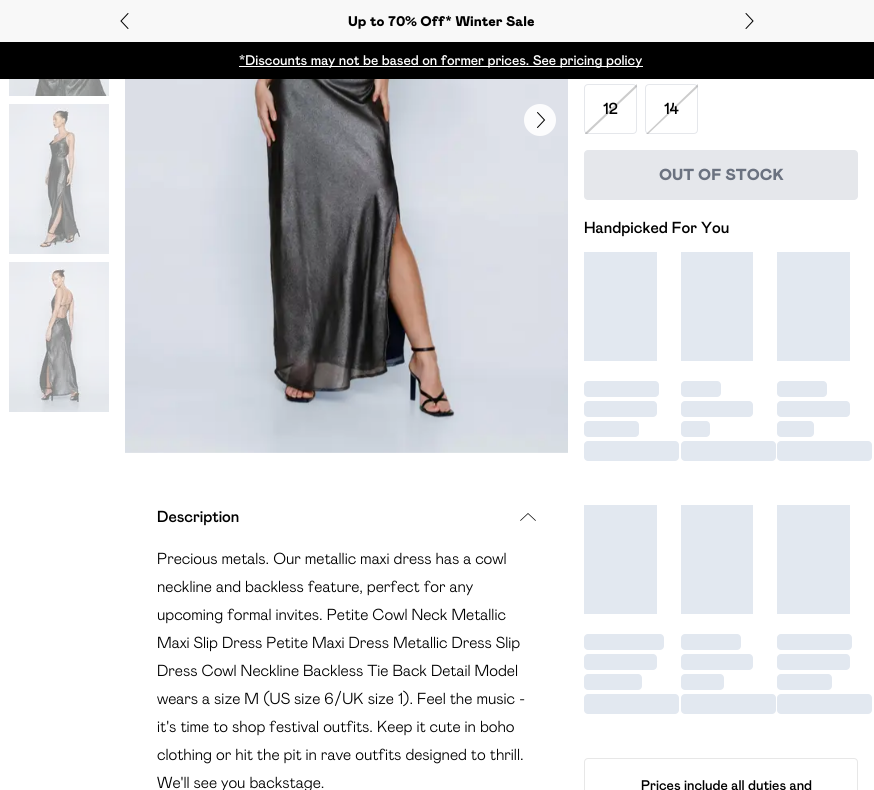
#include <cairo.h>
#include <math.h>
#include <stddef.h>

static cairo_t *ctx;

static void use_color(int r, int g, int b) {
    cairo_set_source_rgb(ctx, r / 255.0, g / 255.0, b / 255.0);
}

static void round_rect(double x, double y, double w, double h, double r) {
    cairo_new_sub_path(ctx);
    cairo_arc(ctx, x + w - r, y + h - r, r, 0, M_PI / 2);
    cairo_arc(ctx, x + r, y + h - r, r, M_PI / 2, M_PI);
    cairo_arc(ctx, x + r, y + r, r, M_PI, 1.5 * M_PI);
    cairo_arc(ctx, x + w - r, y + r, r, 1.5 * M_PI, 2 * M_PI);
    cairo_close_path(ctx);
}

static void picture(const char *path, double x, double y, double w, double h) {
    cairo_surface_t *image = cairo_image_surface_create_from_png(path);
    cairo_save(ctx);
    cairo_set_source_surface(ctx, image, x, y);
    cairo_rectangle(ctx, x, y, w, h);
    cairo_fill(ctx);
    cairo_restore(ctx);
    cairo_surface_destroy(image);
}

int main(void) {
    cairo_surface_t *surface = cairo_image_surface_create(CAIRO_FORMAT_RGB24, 874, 790);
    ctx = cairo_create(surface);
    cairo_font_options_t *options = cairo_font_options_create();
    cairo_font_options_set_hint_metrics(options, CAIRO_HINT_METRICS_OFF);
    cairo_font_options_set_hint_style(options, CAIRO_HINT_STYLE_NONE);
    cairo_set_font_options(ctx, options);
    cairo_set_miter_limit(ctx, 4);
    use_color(255, 255, 255);
    cairo_paint(ctx);
    use_color(248, 248, 248);
    cairo_rectangle(ctx, 0, 0, 874, 42);
    cairo_fill(ctx);
    cairo_new_path(ctx);
    cairo_move_to(ctx, 128, 13.5);
    cairo_line_to(ctx, 121, 21);
    cairo_line_to(ctx, 128, 28.5);
    use_color(0, 0, 0);
    cairo_set_line_width(ctx, 1);
    cairo_set_line_cap(ctx, CAIRO_LINE_CAP_ROUND);
    cairo_stroke(ctx);
    cairo_select_font_face(ctx, "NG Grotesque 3", CAIRO_FONT_SLANT_NORMAL, CAIRO_FONT_WEIGHT_NORMAL);
    cairo_set_font_size(ctx, 14);
    cairo_move_to(ctx, 348, 26);
    cairo_show_text(ctx, "Up to 70% Off* Winter Sale");
    cairo_new_path(ctx);
    cairo_move_to(ctx, 746, 28.5);
    cairo_line_to(ctx, 753, 21);
    cairo_line_to(ctx, 746, 13.5);
    cairo_stroke(ctx);
    cairo_rectangle(ctx, 0, 42, 874, 37);
    cairo_fill(ctx);
    use_color(255, 255, 255);
    cairo_rectangle(ctx, 239, 66, 404, 1);
    cairo_fill(ctx);
    cairo_select_font_face(ctx, "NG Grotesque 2", CAIRO_FONT_SLANT_NORMAL, CAIRO_FONT_WEIGHT_NORMAL);
    cairo_move_to(ctx, 239, 65);
    cairo_show_text(ctx, "*Discounts may not be based on former prices. See pricing policy");
    picture("img1.png", 9, 79, 100, 17);
    picture("img2.png", 9, 104, 100, 150);
    picture("img3.png", 9, 262, 100, 150);
    picture("img4.png", 125, 79, 443, 374);
    use_color(252, 252, 253);
    cairo_arc(ctx, 540, 120, 16, 0, 2 * M_PI);
    cairo_fill(ctx);
    cairo_new_path(ctx);
    cairo_move_to(ctx, 537.5, 127.5);
    cairo_line_to(ctx, 544.5, 120);
    cairo_line_to(ctx, 537.5, 112.5);
    use_color(0, 0, 0);
    cairo_stroke(ctx);
    cairo_set_font_size(ctx, 16);
    cairo_move_to(ctx, 157, 522);
    cairo_show_text(ctx, "Description");
    cairo_new_path(ctx);
    cairo_move_to(ctx, 535.5, 520.5);
    cairo_line_to(ctx, 528, 513.5);
    cairo_line_to(ctx, 520.5, 520.5);
    cairo_set_line_width(ctx, 0.7);
    cairo_stroke(ctx);
    cairo_select_font_face(ctx, "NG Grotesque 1", CAIRO_FONT_SLANT_NORMAL, CAIRO_FONT_WEIGHT_NORMAL);
    cairo_move_to(ctx, 157, 564);
    cairo_show_text(ctx, "Precious metals. Our metallic maxi dress has a cowl");
    cairo_move_to(ctx, 157, 592);
    cairo_show_text(ctx, "neckline and backless feature, perfect for any");
    cairo_move_to(ctx, 157, 620);
    cairo_show_text(ctx, "upcoming formal invites. Petite Cowl Neck Metallic");
    cairo_move_to(ctx, 157, 648);
    cairo_show_text(ctx, "Maxi Slip Dress Petite Maxi Dress Metallic Dress Slip");
    cairo_move_to(ctx, 157, 676);
    cairo_show_text(ctx, "Dress Cowl Neckline Backless Tie Back Detail Model");
    cairo_move_to(ctx, 157, 704);
    cairo_show_text(ctx, "wears a size M (US size 6/UK size 1). Feel the music -");
    cairo_move_to(ctx, 157, 732);
    cairo_show_text(ctx, "it's time to shop festival outfits. Keep it cute in boho");
    cairo_move_to(ctx, 157, 760);
    cairo_show_text(ctx, "clothing or hit the pit in rave outfits designed to thrill.");
    cairo_move_to(ctx, 157, 788);
    cairo_show_text(ctx, "We'll see you backstage.");
    round_rect(584.5, 84.5, 52, 49, 3.5);
    use_color(229, 231, 235);
    cairo_set_line_width(ctx, 1);
    cairo_set_line_cap(ctx, CAIRO_LINE_CAP_BUTT);
    cairo_stroke(ctx);
    cairo_select_font_face(ctx, "NG Grotesque 2", CAIRO_FONT_SLANT_NORMAL, CAIRO_FONT_WEIGHT_NORMAL);
    use_color(0, 0, 0);
    cairo_move_to(ctx, 603, 114);
    cairo_show_text(ctx, "12");
    cairo_save(ctx);
    cairo_rectangle(ctx, 585, 84, 52, 50);
    cairo_clip(ctx);
    cairo_set_source_rgba(ctx, 0, 0, 0, 0.2);
    cairo_new_path(ctx);
    cairo_move_to(ctx, 584, 134);
    cairo_line_to(ctx, 637, 84);
    cairo_line_to(ctx, 639, 85);
    cairo_line_to(ctx, 586, 135);
    cairo_fill(ctx);
    cairo_restore(ctx);
    round_rect(645.5, 84.5, 52, 49, 3.5);
    use_color(229, 231, 235);
    cairo_stroke(ctx);
    use_color(0, 0, 0);
    cairo_move_to(ctx, 664, 114);
    cairo_show_text(ctx, "14");
    cairo_save(ctx);
    cairo_rectangle(ctx, 646, 84, 52, 50);
    cairo_clip(ctx);
    cairo_set_source_rgba(ctx, 0, 0, 0, 0.2);
    cairo_new_path(ctx);
    cairo_move_to(ctx, 646, 134);
    cairo_line_to(ctx, 698, 84);
    cairo_line_to(ctx, 700, 85);
    cairo_line_to(ctx, 647, 135);
    cairo_fill(ctx);
    cairo_restore(ctx);
    use_color(229, 231, 235);
    round_rect(584, 150, 274, 50, 4);
    cairo_fill(ctx);
    cairo_select_font_face(ctx, "NG Grotesque 3", CAIRO_FONT_SLANT_NORMAL, CAIRO_FONT_WEIGHT_NORMAL);
    use_color(107, 114, 128);
    cairo_move_to(ctx, 659, 180);
    cairo_show_text(ctx, "OUT OF STOCK");
    cairo_select_font_face(ctx, "NG Grotesque 2", CAIRO_FONT_SLANT_NORMAL, CAIRO_FONT_WEIGHT_NORMAL);
    use_color(0, 0, 0);
    cairo_move_to(ctx, 584, 233);
    cairo_show_text(ctx, "Handpicked For You");
    use_color(226, 232, 240);
    cairo_rectangle(ctx, 584, 252, 73, 109);
    cairo_fill(ctx);
    round_rect(584, 381, 75, 16, 4);
    cairo_fill(ctx);
    round_rect(584, 401, 73, 16, 4);
    cairo_fill(ctx);
    round_rect(584, 421, 55, 16, 4);
    cairo_fill(ctx);
    round_rect(584, 441, 95, 20, 4);
    cairo_fill(ctx);
    cairo_rectangle(ctx, 681, 252, 72, 109);
    cairo_fill(ctx);
    round_rect(681, 381, 40, 16, 4);
    cairo_fill(ctx);
    round_rect(681, 401, 72, 16, 4);
    cairo_fill(ctx);
    round_rect(681, 421, 29, 16, 4);
    cairo_fill(ctx);
    round_rect(681, 441, 95, 20, 4);
    cairo_fill(ctx);
    cairo_rectangle(ctx, 777, 252, 73, 109);
    cairo_fill(ctx);
    round_rect(777, 381, 50, 16, 4);
    cairo_fill(ctx);
    round_rect(777, 401, 73, 16, 4);
    cairo_fill(ctx);
    round_rect(777, 421, 37, 16, 4);
    cairo_fill(ctx);
    round_rect(777, 441, 95, 20, 4);
    cairo_fill(ctx);
    cairo_rectangle(ctx, 584, 505, 73, 109);
    cairo_fill(ctx);
    round_rect(584, 634, 80, 16, 4);
    cairo_fill(ctx);
    round_rect(584, 654, 73, 16, 4);
    cairo_fill(ctx);
    round_rect(584, 674, 58, 16, 4);
    cairo_fill(ctx);
    round_rect(584, 694, 95, 20, 4);
    cairo_fill(ctx);
    cairo_rectangle(ctx, 681, 505, 72, 109);
    cairo_fill(ctx);
    round_rect(681, 634, 60, 16, 4);
    cairo_fill(ctx);
    round_rect(681, 654, 72, 16, 4);
    cairo_fill(ctx);
    round_rect(681, 674, 43, 16, 4);
    cairo_fill(ctx);
    round_rect(681, 694, 95, 20, 4);
    cairo_fill(ctx);
    cairo_rectangle(ctx, 777, 505, 73, 109);
    cairo_fill(ctx);
    round_rect(777, 634, 75, 16, 4);
    cairo_fill(ctx);
    round_rect(777, 654, 73, 16, 4);
    cairo_fill(ctx);
    round_rect(777, 674, 55, 16, 4);
    cairo_fill(ctx);
    round_rect(777, 694, 95, 20, 4);
    cairo_fill(ctx);
    round_rect(584.5, 758.5, 273, 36, 3.5);
    use_color(231, 231, 231);
    cairo_stroke(ctx);
    cairo_set_font_size(ctx, 14);
    use_color(0, 0, 0);
    cairo_move_to(ctx, 641, 790);
    cairo_show_text(ctx, "Prices include all duties and");
    cairo_surface_write_to_png(surface, "result.png");
    cairo_font_options_destroy(options);
    cairo_destroy(ctx);
    cairo_surface_destroy(surface);
    return 0;
}
